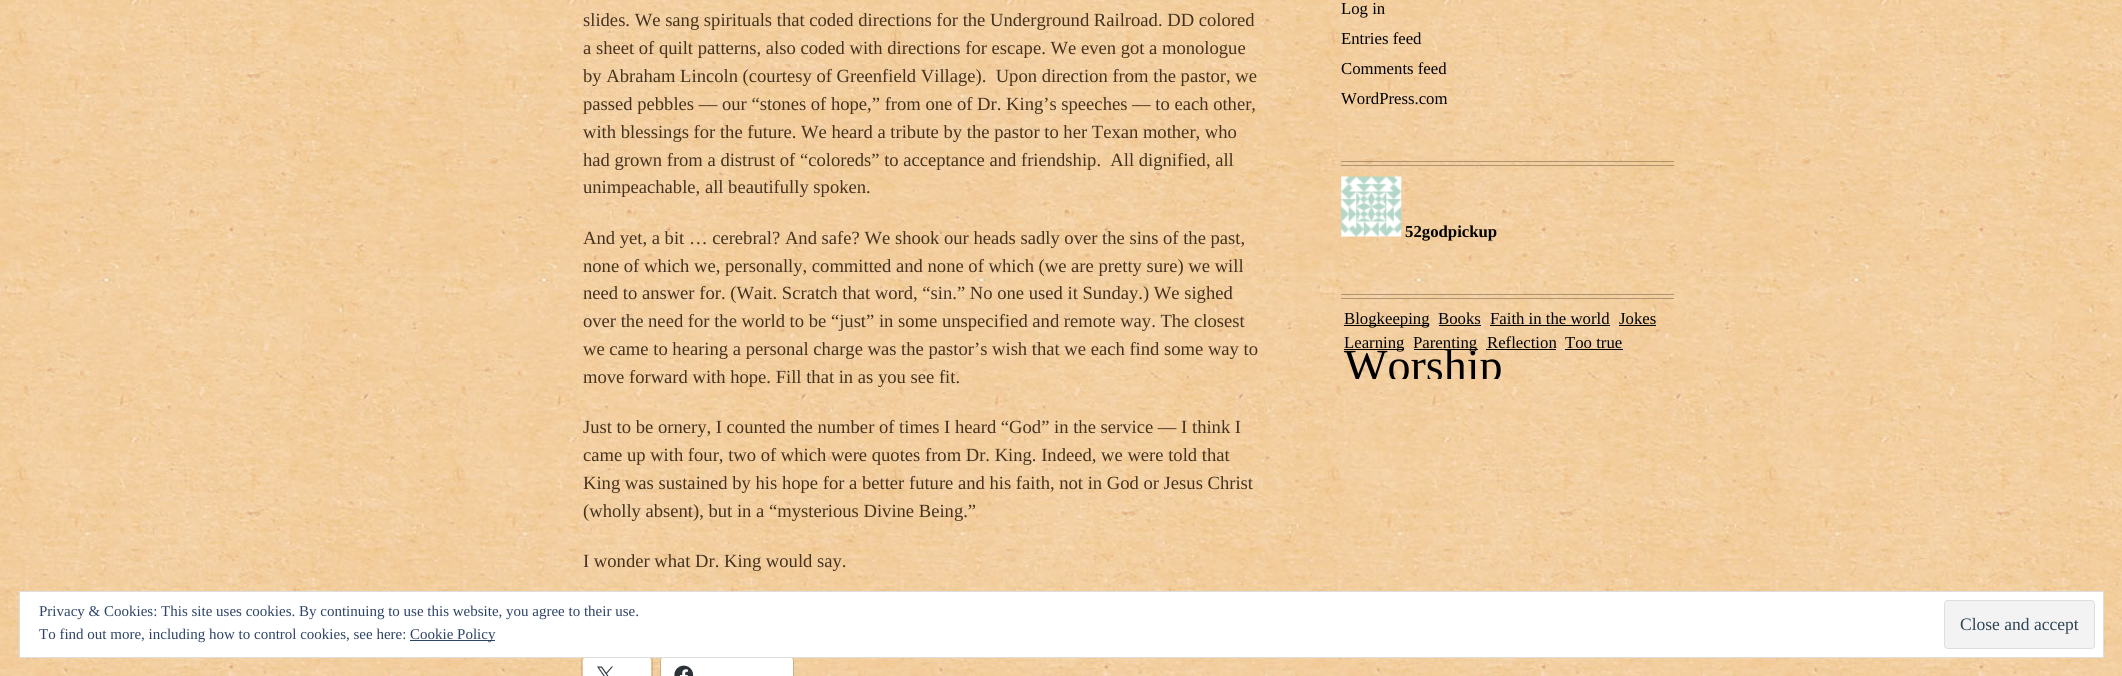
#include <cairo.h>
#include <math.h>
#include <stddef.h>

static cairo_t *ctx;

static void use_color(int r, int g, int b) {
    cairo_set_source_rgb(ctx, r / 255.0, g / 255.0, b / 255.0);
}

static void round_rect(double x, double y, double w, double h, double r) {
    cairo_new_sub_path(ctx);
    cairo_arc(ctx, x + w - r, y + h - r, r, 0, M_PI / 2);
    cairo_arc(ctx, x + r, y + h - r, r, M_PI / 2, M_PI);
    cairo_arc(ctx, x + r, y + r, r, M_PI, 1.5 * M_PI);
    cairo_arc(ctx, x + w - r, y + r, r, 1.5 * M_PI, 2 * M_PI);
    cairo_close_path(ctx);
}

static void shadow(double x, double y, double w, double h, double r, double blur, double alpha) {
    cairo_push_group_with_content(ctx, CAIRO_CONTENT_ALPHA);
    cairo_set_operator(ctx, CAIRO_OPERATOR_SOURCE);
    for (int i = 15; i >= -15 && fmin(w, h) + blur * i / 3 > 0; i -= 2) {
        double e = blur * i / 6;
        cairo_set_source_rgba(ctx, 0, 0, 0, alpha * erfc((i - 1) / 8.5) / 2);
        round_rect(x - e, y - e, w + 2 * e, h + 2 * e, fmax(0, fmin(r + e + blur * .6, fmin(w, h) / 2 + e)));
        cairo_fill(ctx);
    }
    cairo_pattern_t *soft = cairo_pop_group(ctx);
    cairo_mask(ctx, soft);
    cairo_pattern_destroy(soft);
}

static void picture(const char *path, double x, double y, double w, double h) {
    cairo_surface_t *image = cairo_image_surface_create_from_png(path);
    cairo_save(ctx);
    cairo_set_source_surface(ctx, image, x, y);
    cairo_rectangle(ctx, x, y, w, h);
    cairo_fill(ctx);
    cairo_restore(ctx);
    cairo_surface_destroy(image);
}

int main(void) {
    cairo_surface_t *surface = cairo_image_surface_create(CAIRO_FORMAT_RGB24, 2122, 676);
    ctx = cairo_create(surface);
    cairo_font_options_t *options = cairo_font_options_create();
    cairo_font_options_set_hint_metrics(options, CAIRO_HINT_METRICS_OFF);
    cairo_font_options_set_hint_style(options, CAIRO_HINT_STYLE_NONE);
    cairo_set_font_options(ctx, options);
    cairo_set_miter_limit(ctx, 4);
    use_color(255, 255, 255);
    cairo_paint(ctx);
    picture("img1.png", 0, 0, 2122, 676);
    cairo_select_font_face(ctx, "Liberation Serif", CAIRO_FONT_SLANT_NORMAL, CAIRO_FONT_WEIGHT_NORMAL);
    cairo_set_font_size(ctx, 18.6);
    use_color(69, 51, 32);
    cairo_move_to(ctx, 583, 26);
    cairo_show_text(ctx, "slides. We sang spirituals that coded directions for the Underground Railroad. DD colored");
    cairo_move_to(ctx, 583, 54);
    cairo_show_text(ctx, "a sheet of quilt patterns, also coded with directions for escape. We even got a monologue");
    cairo_move_to(ctx, 583, 82);
    cairo_show_text(ctx, "by Abraham Lincoln (courtesy of Greenfield Village).  Upon direction from the pastor, we");
    cairo_move_to(ctx, 583, 110);
    cairo_show_text(ctx, "passed pebbles — our “stones of hope,” from one of Dr. King’s speeches — to each other,");
    cairo_move_to(ctx, 583, 138);
    cairo_show_text(ctx, "with blessings for the future. We heard a tribute by the pastor to her Texan mother, who");
    cairo_move_to(ctx, 583, 166);
    cairo_show_text(ctx, "had grown from a distrust of “coloreds” to acceptance and friendship.  All dignified, all");
    cairo_move_to(ctx, 583, 193);
    cairo_show_text(ctx, "unimpeachable, all beautifully spoken.");
    cairo_move_to(ctx, 583, 244);
    cairo_show_text(ctx, "And yet, a bit … cerebral? And safe? We shook our heads sadly over the sins of the past,");
    cairo_move_to(ctx, 583, 272);
    cairo_show_text(ctx, "none of which we, personally, committed and none of which (we are pretty sure) we will");
    cairo_move_to(ctx, 583, 299);
    cairo_show_text(ctx, "need to answer for. (Wait. Scratch that word, “sin.” No one used it Sunday.) We sighed");
    cairo_move_to(ctx, 583, 327);
    cairo_show_text(ctx, "over the need for the world to be “just” in some unspecified and remote way. The closest");
    cairo_move_to(ctx, 583, 355);
    cairo_show_text(ctx, "we came to hearing a personal charge was the pastor’s wish that we each find some way to");
    cairo_move_to(ctx, 583, 383);
    cairo_show_text(ctx, "move forward with hope. Fill that in as you see fit.");
    cairo_move_to(ctx, 583, 433);
    cairo_show_text(ctx, "Just to be ornery, I counted the number of times I heard “God” in the service — I think I");
    cairo_move_to(ctx, 583, 461);
    cairo_show_text(ctx, "came up with four, two of which were quotes from Dr. King. Indeed, we were told that");
    cairo_move_to(ctx, 583, 489);
    cairo_show_text(ctx, "King was sustained by his hope for a better future and his faith, not in God or Jesus Christ");
    cairo_move_to(ctx, 583, 517);
    cairo_show_text(ctx, "(wholly absent), but in a “mysterious Divine Being.”");
    cairo_move_to(ctx, 583, 567);
    cairo_show_text(ctx, "I wonder what Dr. King would say.");
    round_rect(581.5, 655.5, 71, 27, 5.5);
    cairo_set_source_rgba(ctx, 0, 0, 0, 0.12);
    cairo_set_line_width(ctx, 1);
    cairo_stroke(ctx);
    use_color(0, 0, 0);
    shadow(583, 658, 68, 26, 5, 1, 0.12);
    use_color(255, 255, 255);
    round_rect(583, 656, 68, 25, 5);
    cairo_fill(ctx);
    picture("img2.png", 597, 666, 16, 10);
    round_rect(660.5, 655.5, 133, 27, 5.5);
    cairo_set_source_rgba(ctx, 0, 0, 0, 0.12);
    cairo_stroke(ctx);
    use_color(0, 0, 0);
    shadow(661, 658, 132, 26, 5, 1, 0.12);
    use_color(255, 255, 255);
    round_rect(661, 656, 132, 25, 5);
    cairo_fill(ctx);
    picture("img3.png", 674, 665, 20, 11);
    cairo_set_font_size(ctx, 16.75);
    use_color(0, 0, 0);
    cairo_move_to(ctx, 1341, 14);
    cairo_show_text(ctx, "Log in");
    cairo_move_to(ctx, 1341, 44);
    cairo_show_text(ctx, "Entries feed");
    cairo_move_to(ctx, 1341, 74);
    cairo_show_text(ctx, "Comments feed");
    cairo_move_to(ctx, 1341, 104);
    cairo_show_text(ctx, "WordPress.com");
    use_color(176, 147, 112);
    cairo_rectangle(ctx, 1341, 161, 333, 1);
    cairo_fill(ctx);
    cairo_rectangle(ctx, 1341, 165, 333, 1);
    cairo_fill(ctx);
    picture("img4.png", 1341, 176, 61, 61);
    cairo_select_font_face(ctx, "Liberation Serif", CAIRO_FONT_SLANT_NORMAL, CAIRO_FONT_WEIGHT_BOLD);
    use_color(0, 0, 0);
    cairo_move_to(ctx, 1405, 237);
    cairo_show_text(ctx, "52godpickup");
    use_color(176, 147, 112);
    cairo_rectangle(ctx, 1341, 294, 333, 1);
    cairo_fill(ctx);
    cairo_rectangle(ctx, 1341, 298, 333, 1);
    cairo_fill(ctx);
    use_color(0, 0, 0);
    cairo_rectangle(ctx, 1344, 325, 85, 1);
    cairo_fill(ctx);
    cairo_select_font_face(ctx, "Liberation Serif", CAIRO_FONT_SLANT_NORMAL, CAIRO_FONT_WEIGHT_NORMAL);
    cairo_move_to(ctx, 1344, 324);
    cairo_show_text(ctx, "Blogkeeping");
    cairo_move_to(ctx, 1438, 324);
    cairo_show_text(ctx, "Books");
    cairo_rectangle(ctx, 1439, 325, 42, 1);
    cairo_fill(ctx);
    cairo_move_to(ctx, 1490, 324);
    cairo_show_text(ctx, "Faith in the world");
    cairo_rectangle(ctx, 1490, 325, 120, 1);
    cairo_fill(ctx);
    cairo_move_to(ctx, 1619, 324);
    cairo_show_text(ctx, "Jokes");
    cairo_rectangle(ctx, 1619, 325, 37, 1);
    cairo_fill(ctx);
    cairo_rectangle(ctx, 1344, 349, 60, 1);
    cairo_fill(ctx);
    cairo_move_to(ctx, 1344, 348);
    cairo_show_text(ctx, "Learning");
    cairo_rectangle(ctx, 1414, 349, 64, 1);
    cairo_fill(ctx);
    cairo_move_to(ctx, 1413, 348);
    cairo_show_text(ctx, "Parenting");
    cairo_move_to(ctx, 1487, 348);
    cairo_show_text(ctx, "Reflection");
    cairo_rectangle(ctx, 1486, 349, 70, 1);
    cairo_fill(ctx);
    cairo_move_to(ctx, 1565, 348);
    cairo_show_text(ctx, "Too true");
    cairo_rectangle(ctx, 1565, 349, 58, 1);
    cairo_fill(ctx);
    cairo_save(ctx);
    cairo_rectangle(ctx, 1341, 308, 333, 71);
    cairo_clip(ctx);
    cairo_set_font_size(ctx, 46);
    cairo_move_to(ctx, 1344, 381);
    cairo_show_text(ctx, "Worship");
    cairo_restore(ctx);
    use_color(255, 255, 255);
    cairo_rectangle(ctx, 19.5, 591.5, 2084, 66);
    cairo_fill_preserve(ctx);
    use_color(222, 222, 222);
    cairo_stroke(ctx);
    cairo_set_font_size(ctx, 15);
    use_color(46, 68, 103);
    cairo_move_to(ctx, 39, 616);
    cairo_show_text(ctx, "Privacy & Cookies: This site uses cookies. By continuing to use this website, you agree to their use.");
    use_color(243, 243, 243);
    round_rect(1944.5, 600.5, 150, 48, 3.5);
    cairo_fill_preserve(ctx);
    use_color(222, 222, 222);
    cairo_stroke(ctx);
    cairo_set_font_size(ctx, 17.5);
    use_color(46, 68, 83);
    cairo_move_to(ctx, 1960, 630);
    cairo_show_text(ctx, "Close and accept");
    cairo_set_font_size(ctx, 15);
    use_color(46, 68, 103);
    cairo_move_to(ctx, 39, 639);
    cairo_show_text(ctx, "To find out more, including how to control cookies, see here:");
    cairo_rectangle(ctx, 410, 640, 85, 1);
    cairo_fill(ctx);
    cairo_move_to(ctx, 410, 639);
    cairo_show_text(ctx, "Cookie Policy");
    cairo_surface_write_to_png(surface, "result.png");
    cairo_font_options_destroy(options);
    cairo_destroy(ctx);
    cairo_surface_destroy(surface);
    return 0;
}
